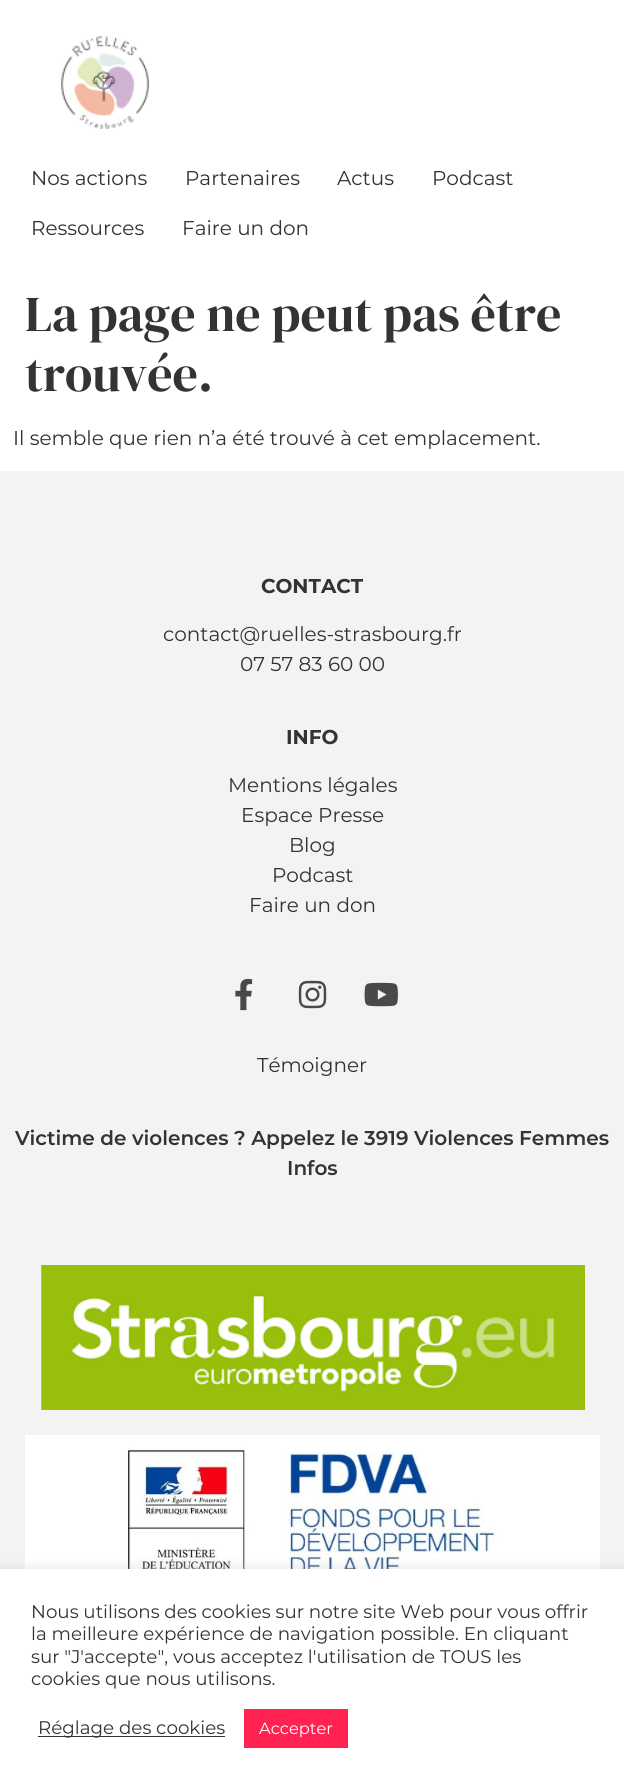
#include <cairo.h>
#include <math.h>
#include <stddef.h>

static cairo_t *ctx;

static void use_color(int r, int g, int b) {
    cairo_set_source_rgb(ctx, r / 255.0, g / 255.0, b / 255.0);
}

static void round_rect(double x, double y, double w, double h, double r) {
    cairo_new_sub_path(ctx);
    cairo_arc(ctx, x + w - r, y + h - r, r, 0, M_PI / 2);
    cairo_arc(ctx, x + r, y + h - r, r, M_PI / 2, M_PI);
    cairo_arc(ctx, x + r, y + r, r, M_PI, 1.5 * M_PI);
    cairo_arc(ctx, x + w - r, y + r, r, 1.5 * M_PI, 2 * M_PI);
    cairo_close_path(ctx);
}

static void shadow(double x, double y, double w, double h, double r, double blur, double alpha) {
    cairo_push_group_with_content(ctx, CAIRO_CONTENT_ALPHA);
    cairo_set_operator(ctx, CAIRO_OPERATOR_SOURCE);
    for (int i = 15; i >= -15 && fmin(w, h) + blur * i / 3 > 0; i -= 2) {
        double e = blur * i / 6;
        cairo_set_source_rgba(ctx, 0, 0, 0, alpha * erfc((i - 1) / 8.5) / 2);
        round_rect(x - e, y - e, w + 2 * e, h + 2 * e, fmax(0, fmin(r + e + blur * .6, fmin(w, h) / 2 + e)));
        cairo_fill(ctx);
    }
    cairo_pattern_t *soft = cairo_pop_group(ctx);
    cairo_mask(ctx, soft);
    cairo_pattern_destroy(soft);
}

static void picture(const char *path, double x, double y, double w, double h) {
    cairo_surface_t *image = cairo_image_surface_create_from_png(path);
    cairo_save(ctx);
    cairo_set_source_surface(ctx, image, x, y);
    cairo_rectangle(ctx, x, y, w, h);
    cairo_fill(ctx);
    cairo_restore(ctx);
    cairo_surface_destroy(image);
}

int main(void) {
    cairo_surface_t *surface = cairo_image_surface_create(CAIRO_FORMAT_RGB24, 624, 1785);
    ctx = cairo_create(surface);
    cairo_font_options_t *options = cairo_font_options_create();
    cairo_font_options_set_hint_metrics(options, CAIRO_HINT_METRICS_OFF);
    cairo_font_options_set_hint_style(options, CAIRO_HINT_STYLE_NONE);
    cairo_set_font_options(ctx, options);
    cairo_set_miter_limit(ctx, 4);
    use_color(255, 255, 255);
    cairo_paint(ctx);
    picture("img1.png", 61, 36, 89, 93);
    cairo_select_font_face(ctx, "Montserrat", CAIRO_FONT_SLANT_NORMAL, CAIRO_FONT_WEIGHT_NORMAL);
    cairo_set_font_size(ctx, 20);
    use_color(51, 51, 51);
    cairo_move_to(ctx, 31, 185);
    cairo_show_text(ctx, "Nos actions");
    cairo_move_to(ctx, 185, 185);
    cairo_show_text(ctx, "Partenaires");
    cairo_move_to(ctx, 337, 185);
    cairo_show_text(ctx, "Actus");
    cairo_move_to(ctx, 432, 185);
    cairo_show_text(ctx, "Podcast");
    cairo_move_to(ctx, 31, 235);
    cairo_show_text(ctx, "Ressources");
    cairo_move_to(ctx, 182, 235);
    cairo_show_text(ctx, "Faire un don");
    cairo_select_font_face(ctx, "DM Serif Display", CAIRO_FONT_SLANT_NORMAL, CAIRO_FONT_WEIGHT_NORMAL);
    cairo_set_font_size(ctx, 50);
    cairo_move_to(ctx, 25, 331);
    cairo_show_text(ctx, "La page ne peut pas être");
    cairo_move_to(ctx, 25, 391);
    cairo_show_text(ctx, "trouvée.");
    cairo_select_font_face(ctx, "Montserrat", CAIRO_FONT_SLANT_NORMAL, CAIRO_FONT_WEIGHT_NORMAL);
    cairo_set_font_size(ctx, 20);
    cairo_move_to(ctx, 13, 445);
    cairo_show_text(ctx, "Il semble que rien n’a été trouvé à cet emplacement.");
    use_color(243, 243, 243);
    cairo_rectangle(ctx, 0, 471, 624, 1098);
    cairo_fill(ctx);
    cairo_select_font_face(ctx, "Montserrat", CAIRO_FONT_SLANT_NORMAL, CAIRO_FONT_WEIGHT_BOLD);
    use_color(51, 51, 51);
    cairo_move_to(ctx, 261, 593);
    cairo_show_text(ctx, "CONTACT");
    cairo_select_font_face(ctx, "Montserrat", CAIRO_FONT_SLANT_NORMAL, CAIRO_FONT_WEIGHT_NORMAL);
    cairo_move_to(ctx, 163, 641);
    cairo_show_text(ctx, "contact@ruelles-strasbourg.fr");
    cairo_move_to(ctx, 240, 671);
    cairo_show_text(ctx, "07 57 83 60 00");
    cairo_select_font_face(ctx, "Montserrat", CAIRO_FONT_SLANT_NORMAL, CAIRO_FONT_WEIGHT_BOLD);
    cairo_move_to(ctx, 286, 744);
    cairo_show_text(ctx, "INFO");
    cairo_select_font_face(ctx, "Montserrat", CAIRO_FONT_SLANT_NORMAL, CAIRO_FONT_WEIGHT_NORMAL);
    cairo_move_to(ctx, 228, 792);
    cairo_show_text(ctx, "Mentions légales");
    cairo_move_to(ctx, 241, 822);
    cairo_show_text(ctx, "Espace Presse");
    cairo_move_to(ctx, 289, 852);
    cairo_show_text(ctx, "Blog");
    cairo_move_to(ctx, 272, 882);
    cairo_show_text(ctx, "Podcast");
    cairo_move_to(ctx, 249, 912);
    cairo_show_text(ctx, "Faire un don");
    picture("img2.png", 235, 978, 18, 33);
    picture("img3.png", 298, 980, 29, 29);
    picture("img4.png", 364, 982, 34, 25);
    cairo_move_to(ctx, 257, 1072);
    cairo_show_text(ctx, "Témoigner");
    cairo_select_font_face(ctx, "Montserrat SemiBold", CAIRO_FONT_SLANT_NORMAL, CAIRO_FONT_WEIGHT_NORMAL);
    cairo_move_to(ctx, 15, 1145);
    cairo_show_text(ctx, "Victime de violences ? Appelez le 3919 Violences Femmes");
    cairo_move_to(ctx, 287, 1175);
    cairo_show_text(ctx, "Infos");
    picture("img5.png", 41, 1265, 544, 145);
    picture("img6.png", 25, 1435, 575, 134);
    use_color(172, 171, 171);
    shadow(0, 1568, 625, 216, 0, 6, 0.3);
    use_color(255, 255, 255);
    cairo_rectangle(ctx, 0, 1569, 624, 216);
    cairo_fill(ctx);
    cairo_select_font_face(ctx, "Montserrat", CAIRO_FONT_SLANT_NORMAL, CAIRO_FONT_WEIGHT_NORMAL);
    cairo_set_font_size(ctx, 18.3);
    use_color(51, 51, 51);
    cairo_move_to(ctx, 31, 1618);
    cairo_show_text(ctx, "Nous utilisons des cookies sur notre site Web pour vous offrir");
    cairo_move_to(ctx, 31, 1640);
    cairo_show_text(ctx, "la meilleure expérience de navigation possible. En cliquant");
    cairo_move_to(ctx, 31, 1663);
    cairo_show_text(ctx, "sur \"J'accepte\", vous acceptez l'utilisation de TOUS les");
    cairo_move_to(ctx, 31, 1685);
    cairo_show_text(ctx, "cookies que nous utilisons.");
    cairo_rectangle(ctx, 38, 1736, 187, 1);
    cairo_fill(ctx);
    cairo_move_to(ctx, 38, 1734);
    cairo_show_text(ctx, "Réglage des cookies");
    use_color(255, 34, 82);
    cairo_rectangle(ctx, 244, 1709, 104, 39);
    cairo_fill(ctx);
    cairo_set_font_size(ctx, 16.25);
    use_color(255, 255, 255);
    cairo_move_to(ctx, 259, 1734);
    cairo_show_text(ctx, "Accepter");
    cairo_surface_write_to_png(surface, "result.png");
    cairo_font_options_destroy(options);
    cairo_destroy(ctx);
    cairo_surface_destroy(surface);
    return 0;
}
